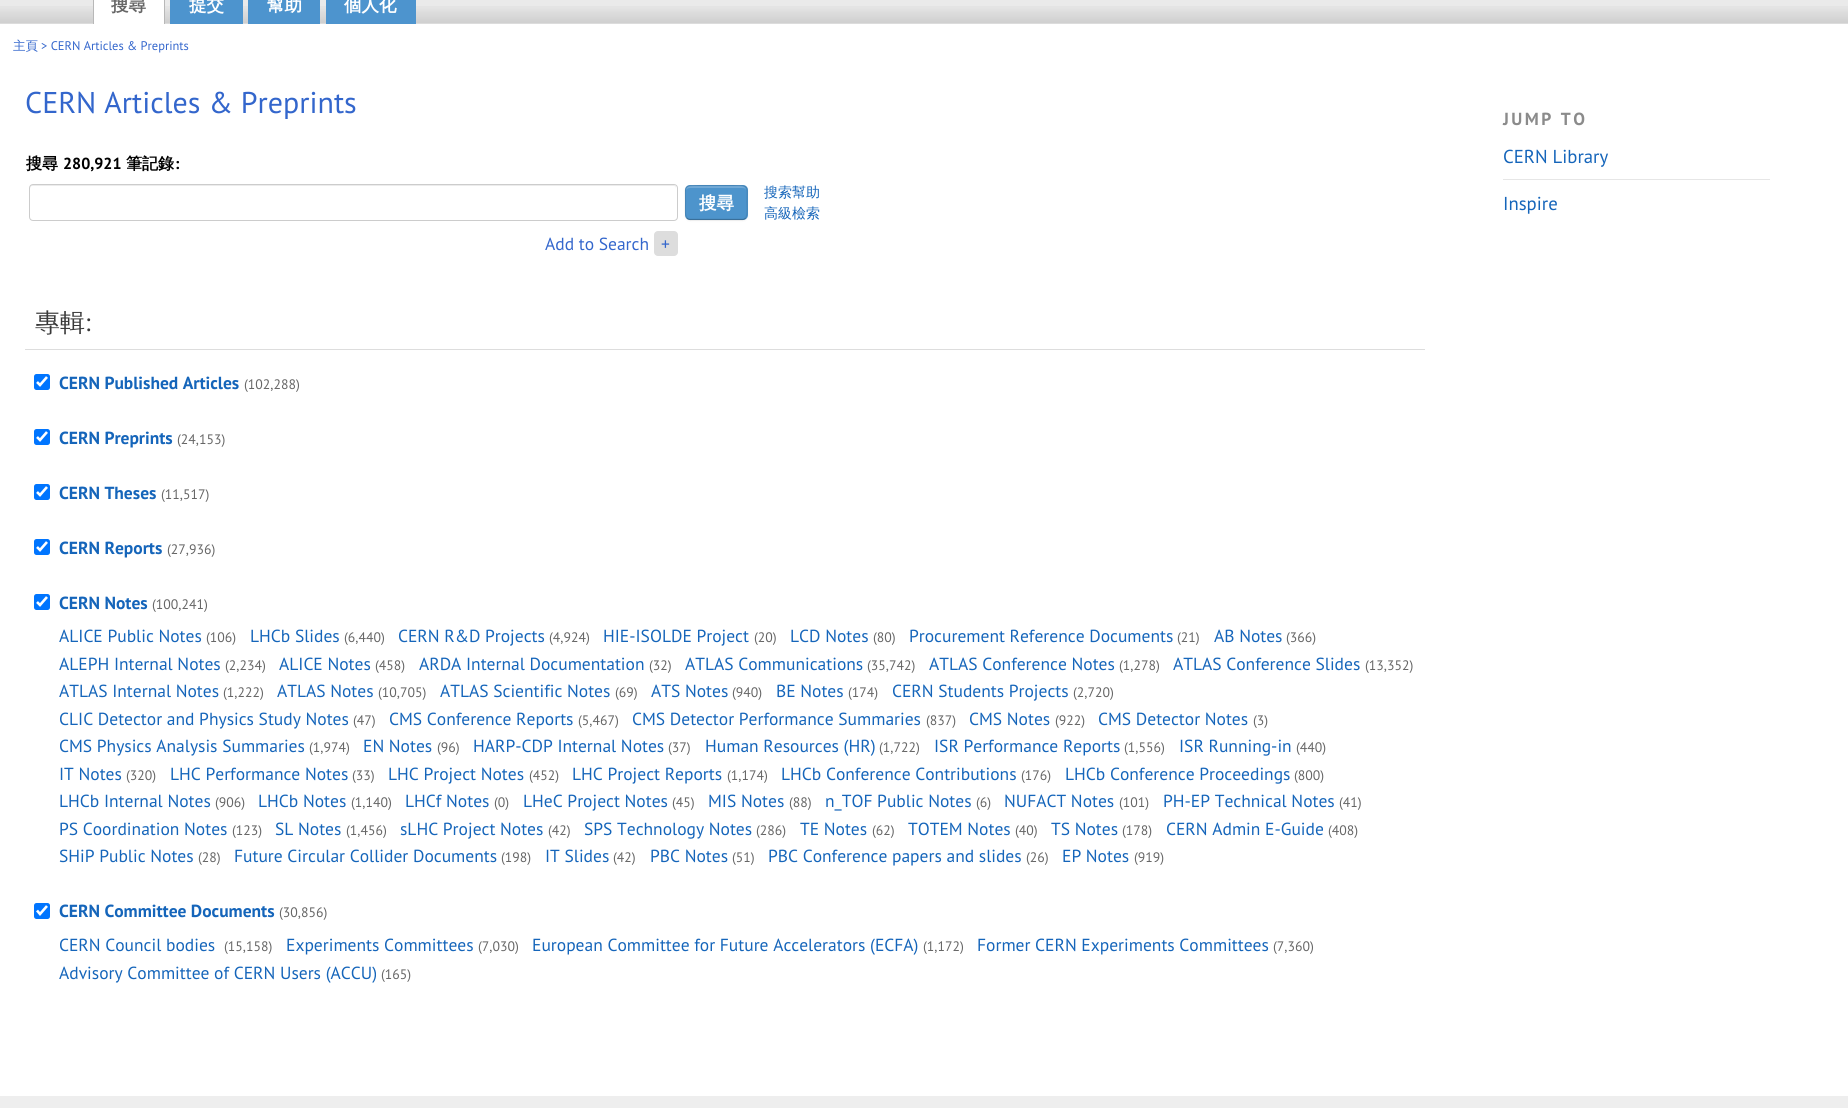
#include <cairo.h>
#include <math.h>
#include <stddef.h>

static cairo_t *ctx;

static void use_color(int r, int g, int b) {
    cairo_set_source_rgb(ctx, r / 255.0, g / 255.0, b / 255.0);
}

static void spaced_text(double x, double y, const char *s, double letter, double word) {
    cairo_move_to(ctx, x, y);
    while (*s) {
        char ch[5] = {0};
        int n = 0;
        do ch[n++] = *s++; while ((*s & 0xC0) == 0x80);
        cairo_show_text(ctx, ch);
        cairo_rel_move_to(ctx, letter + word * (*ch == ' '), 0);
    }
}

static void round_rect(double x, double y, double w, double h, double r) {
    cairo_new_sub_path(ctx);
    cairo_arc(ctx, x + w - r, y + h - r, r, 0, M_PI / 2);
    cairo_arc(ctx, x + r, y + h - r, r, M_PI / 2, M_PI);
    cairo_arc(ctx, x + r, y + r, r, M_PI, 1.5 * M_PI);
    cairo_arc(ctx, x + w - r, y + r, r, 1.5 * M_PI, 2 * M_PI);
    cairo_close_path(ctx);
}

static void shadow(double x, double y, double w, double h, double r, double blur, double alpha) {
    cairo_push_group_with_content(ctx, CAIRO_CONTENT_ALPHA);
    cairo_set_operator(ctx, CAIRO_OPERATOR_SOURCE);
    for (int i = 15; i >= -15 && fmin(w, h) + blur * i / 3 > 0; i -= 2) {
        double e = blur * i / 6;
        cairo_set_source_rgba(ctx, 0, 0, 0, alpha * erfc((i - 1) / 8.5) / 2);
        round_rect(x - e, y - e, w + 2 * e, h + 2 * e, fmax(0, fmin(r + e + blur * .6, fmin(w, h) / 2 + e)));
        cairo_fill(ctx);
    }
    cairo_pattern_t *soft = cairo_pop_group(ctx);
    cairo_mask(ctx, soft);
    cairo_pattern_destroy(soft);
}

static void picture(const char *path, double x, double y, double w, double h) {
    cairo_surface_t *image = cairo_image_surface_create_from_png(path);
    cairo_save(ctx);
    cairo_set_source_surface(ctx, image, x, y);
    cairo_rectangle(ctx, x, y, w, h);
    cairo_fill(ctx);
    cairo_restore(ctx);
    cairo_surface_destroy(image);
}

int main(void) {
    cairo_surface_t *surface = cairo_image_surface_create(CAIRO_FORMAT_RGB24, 1848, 1108);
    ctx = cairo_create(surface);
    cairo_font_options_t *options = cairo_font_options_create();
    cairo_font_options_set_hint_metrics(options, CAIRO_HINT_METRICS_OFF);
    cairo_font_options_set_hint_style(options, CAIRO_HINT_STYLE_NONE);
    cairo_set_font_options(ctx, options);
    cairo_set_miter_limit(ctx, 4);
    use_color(255, 255, 255);
    cairo_paint(ctx);
    use_color(234, 234, 234);
    cairo_rectangle(ctx, 0, 0, 1848, 24);
    cairo_fill(ctx);
    picture("img1.png", 0, 6, 1848, 18);
    use_color(255, 255, 255);
    cairo_rectangle(ctx, 94, 0, 70, 24);
    cairo_fill(ctx);
    use_color(184, 184, 184);
    cairo_rectangle(ctx, 164, 0, 1, 24);
    cairo_fill(ctx);
    cairo_rectangle(ctx, 93, 0, 1, 24);
    cairo_fill(ctx);
    cairo_select_font_face(ctx, "WenQuanYi Zen Hei", CAIRO_FONT_SLANT_NORMAL, CAIRO_FONT_WEIGHT_BOLD);
    cairo_set_font_size(ctx, 17.5);
    use_color(102, 102, 102);
    cairo_move_to(ctx, 111, 11);
    cairo_show_text(ctx, "搜尋");
    use_color(77, 148, 206);
    cairo_rectangle(ctx, 170, 0, 73, 24);
    cairo_fill(ctx);
    use_color(255, 255, 255);
    cairo_move_to(ctx, 189, 11);
    cairo_show_text(ctx, "提交");
    use_color(77, 148, 206);
    cairo_rectangle(ctx, 248, 0, 72, 24);
    cairo_fill(ctx);
    use_color(255, 255, 255);
    cairo_move_to(ctx, 267, 11);
    cairo_show_text(ctx, "幫助");
    use_color(77, 148, 206);
    cairo_rectangle(ctx, 326, 0, 90, 24);
    cairo_fill(ctx);
    use_color(255, 255, 255);
    cairo_move_to(ctx, 344, 11);
    cairo_show_text(ctx, "個人化");
    cairo_select_font_face(ctx, "WenQuanYi Zen Hei Medium", CAIRO_FONT_SLANT_NORMAL, CAIRO_FONT_WEIGHT_NORMAL);
    cairo_set_font_size(ctx, 12.5);
    use_color(51, 102, 204);
    cairo_move_to(ctx, 13, 50);
    cairo_show_text(ctx, "主頁");
    cairo_select_font_face(ctx, "PT Sans", CAIRO_FONT_SLANT_NORMAL, CAIRO_FONT_WEIGHT_NORMAL);
    cairo_move_to(ctx, 41, 50);
    cairo_show_text(ctx, "> CERN Articles & Preprints");
    cairo_set_font_size(ctx, 30);
    cairo_move_to(ctx, 25, 113);
    cairo_show_text(ctx, "CERN Articles & Preprints");
    cairo_select_font_face(ctx, "WenQuanYi Zen Hei", CAIRO_FONT_SLANT_NORMAL, CAIRO_FONT_WEIGHT_BOLD);
    cairo_set_font_size(ctx, 16);
    use_color(0, 0, 0);
    cairo_move_to(ctx, 26, 169);
    cairo_show_text(ctx, "搜尋");
    cairo_select_font_face(ctx, "PT Sans", CAIRO_FONT_SLANT_NORMAL, CAIRO_FONT_WEIGHT_BOLD);
    cairo_move_to(ctx, 63, 169);
    cairo_show_text(ctx, "280,921");
    cairo_select_font_face(ctx, "WenQuanYi Zen Hei", CAIRO_FONT_SLANT_NORMAL, CAIRO_FONT_WEIGHT_BOLD);
    cairo_move_to(ctx, 126, 169);
    cairo_show_text(ctx, "筆記錄");
    cairo_select_font_face(ctx, "PT Sans", CAIRO_FONT_SLANT_NORMAL, CAIRO_FONT_WEIGHT_BOLD);
    cairo_move_to(ctx, 175, 169);
    cairo_show_text(ctx, ":");
    use_color(236, 236, 236);
    cairo_new_path(ctx);
    cairo_move_to(ctx, 32, 186);
    cairo_line_to(ctx, 674, 186);
    cairo_curve_to(ctx, 675, 186, 676, 187, 676, 189);
    cairo_line_to(ctx, 676, 188);
    cairo_curve_to(ctx, 676, 186, 675, 185, 674, 185);
    cairo_line_to(ctx, 32, 185);
    cairo_curve_to(ctx, 31, 185, 30, 186, 30, 188);
    cairo_line_to(ctx, 30, 189);
    cairo_curve_to(ctx, 30, 187, 31, 186, 32, 186);
    cairo_close_path(ctx);
    cairo_fill(ctx);
    round_rect(29.5, 184.5, 648, 36, 3.5);
    use_color(204, 204, 204);
    cairo_set_line_width(ctx, 1);
    cairo_stroke(ctx);
    use_color(0, 0, 0);
    shadow(685, 186, 63, 35, 5, 1, 0.05);
    use_color(77, 148, 204);
    round_rect(685, 185, 63, 35, 5);
    cairo_fill(ctx);
    use_color(113, 169, 214);
    cairo_new_path(ctx);
    cairo_move_to(ctx, 690, 188);
    cairo_line_to(ctx, 742, 188);
    cairo_curve_to(ctx, 745, 188, 746, 189, 746, 191);
    cairo_curve_to(ctx, 746, 184, 738, 186, 733, 186);
    cairo_line_to(ctx, 699, 186);
    cairo_curve_to(ctx, 694, 186, 686, 184, 686, 191);
    cairo_curve_to(ctx, 686, 189, 688, 188, 690, 188);
    cairo_close_path(ctx);
    cairo_fill(ctx);
    cairo_new_path(ctx);
    cairo_move_to(ctx, 745.5, 218);
    cairo_curve_to(ctx, 745, 219, 743.5, 219.5, 742.5, 219.5);
    cairo_line_to(ctx, 690, 219.5);
    cairo_curve_to(ctx, 689, 219.5, 687.5, 219, 687, 218);
    cairo_set_source_rgba(ctx, 0, 0, 0, 0.25);
    cairo_set_line_width(ctx, 1.2);
    cairo_stroke(ctx);
    cairo_new_path(ctx);
    cairo_move_to(ctx, 687, 218);
    cairo_curve_to(ctx, 684.5, 215.5, 685.5, 205.5, 685.5, 202.5);
    cairo_curve_to(ctx, 685.5, 186, 682.5, 185.5, 699, 185.5);
    cairo_line_to(ctx, 734, 185.5);
    cairo_curve_to(ctx, 750, 185.5, 747, 186, 747, 202.5);
    cairo_curve_to(ctx, 747, 205.5, 748, 215.5, 745.5, 218);
    cairo_set_source_rgba(ctx, 0, 0, 0, 0.1);
    cairo_stroke(ctx);
    cairo_select_font_face(ctx, "WenQuanYi Zen Hei", CAIRO_FONT_SLANT_NORMAL, CAIRO_FONT_WEIGHT_BOLD);
    cairo_set_font_size(ctx, 17.5);
    use_color(255, 255, 255);
    cairo_move_to(ctx, 699, 209);
    cairo_show_text(ctx, "搜尋");
    cairo_select_font_face(ctx, "WenQuanYi Zen Hei Medium", CAIRO_FONT_SLANT_NORMAL, CAIRO_FONT_WEIGHT_NORMAL);
    cairo_set_font_size(ctx, 14);
    use_color(21, 101, 186);
    cairo_move_to(ctx, 764, 197);
    cairo_show_text(ctx, "搜索幫助");
    cairo_move_to(ctx, 764, 218);
    cairo_show_text(ctx, "高級檢索");
    cairo_select_font_face(ctx, "PT Sans", CAIRO_FONT_SLANT_NORMAL, CAIRO_FONT_WEIGHT_NORMAL);
    cairo_set_font_size(ctx, 17.5);
    use_color(51, 102, 204);
    cairo_move_to(ctx, 545, 250);
    cairo_show_text(ctx, "Add to Search");
    use_color(221, 221, 221);
    round_rect(654, 231, 24, 25, 4);
    cairo_fill(ctx);
    use_color(51, 102, 204);
    cairo_move_to(ctx, 661, 250);
    cairo_show_text(ctx, "+");
    use_color(221, 221, 221);
    cairo_rectangle(ctx, 25, 349, 1400, 1);
    cairo_fill(ctx);
    cairo_select_font_face(ctx, "WenQuanYi Zen Hei Medium", CAIRO_FONT_SLANT_NORMAL, CAIRO_FONT_WEIGHT_NORMAL);
    cairo_set_font_size(ctx, 25);
    use_color(56, 56, 56);
    cairo_move_to(ctx, 35, 331);
    cairo_show_text(ctx, "專輯");
    cairo_select_font_face(ctx, "PT Sans", CAIRO_FONT_SLANT_NORMAL, CAIRO_FONT_WEIGHT_NORMAL);
    cairo_move_to(ctx, 85, 331);
    cairo_show_text(ctx, ":");
    use_color(0, 117, 255);
    round_rect(34, 374, 16, 16, 2.5);
    cairo_fill(ctx);
    cairo_new_path(ctx);
    cairo_move_to(ctx, 37, 382);
    cairo_line_to(ctx, 40, 385);
    cairo_line_to(ctx, 47, 377);
    use_color(255, 255, 255);
    cairo_set_line_width(ctx, 2.6);
    cairo_stroke(ctx);
    cairo_select_font_face(ctx, "PT Sans", CAIRO_FONT_SLANT_NORMAL, CAIRO_FONT_WEIGHT_BOLD);
    cairo_set_font_size(ctx, 17.5);
    use_color(21, 101, 186);
    cairo_move_to(ctx, 59, 389);
    cairo_show_text(ctx, "CERN Published Articles");
    cairo_select_font_face(ctx, "PT Sans", CAIRO_FONT_SLANT_NORMAL, CAIRO_FONT_WEIGHT_NORMAL);
    cairo_set_font_size(ctx, 13.75);
    use_color(102, 102, 102);
    cairo_move_to(ctx, 244, 389);
    cairo_show_text(ctx, "(102,288)");
    use_color(0, 117, 255);
    round_rect(34, 429, 16, 16, 2.5);
    cairo_fill(ctx);
    cairo_new_path(ctx);
    cairo_move_to(ctx, 37, 437);
    cairo_line_to(ctx, 40, 440);
    cairo_line_to(ctx, 47, 432);
    use_color(255, 255, 255);
    cairo_stroke(ctx);
    cairo_select_font_face(ctx, "PT Sans", CAIRO_FONT_SLANT_NORMAL, CAIRO_FONT_WEIGHT_BOLD);
    cairo_set_font_size(ctx, 17.5);
    use_color(21, 101, 186);
    cairo_move_to(ctx, 59, 444);
    cairo_show_text(ctx, "CERN Preprints");
    cairo_select_font_face(ctx, "PT Sans", CAIRO_FONT_SLANT_NORMAL, CAIRO_FONT_WEIGHT_NORMAL);
    cairo_set_font_size(ctx, 13.75);
    use_color(102, 102, 102);
    cairo_move_to(ctx, 177, 444);
    cairo_show_text(ctx, "(24,153)");
    use_color(0, 117, 255);
    round_rect(34, 484, 16, 16, 2.5);
    cairo_fill(ctx);
    cairo_new_path(ctx);
    cairo_move_to(ctx, 37, 492);
    cairo_line_to(ctx, 40, 495);
    cairo_line_to(ctx, 47, 487);
    use_color(255, 255, 255);
    cairo_stroke(ctx);
    cairo_select_font_face(ctx, "PT Sans", CAIRO_FONT_SLANT_NORMAL, CAIRO_FONT_WEIGHT_BOLD);
    cairo_set_font_size(ctx, 17.5);
    use_color(21, 101, 186);
    cairo_move_to(ctx, 59, 499);
    cairo_show_text(ctx, "CERN Theses");
    cairo_select_font_face(ctx, "PT Sans", CAIRO_FONT_SLANT_NORMAL, CAIRO_FONT_WEIGHT_NORMAL);
    cairo_set_font_size(ctx, 13.75);
    use_color(102, 102, 102);
    cairo_move_to(ctx, 161, 499);
    cairo_show_text(ctx, "(11,517)");
    use_color(0, 117, 255);
    round_rect(34, 539, 16, 16, 2.5);
    cairo_fill(ctx);
    cairo_new_path(ctx);
    cairo_move_to(ctx, 37, 547);
    cairo_line_to(ctx, 40, 550);
    cairo_line_to(ctx, 47, 542);
    use_color(255, 255, 255);
    cairo_stroke(ctx);
    cairo_select_font_face(ctx, "PT Sans", CAIRO_FONT_SLANT_NORMAL, CAIRO_FONT_WEIGHT_BOLD);
    cairo_set_font_size(ctx, 17.5);
    use_color(21, 101, 186);
    cairo_move_to(ctx, 59, 554);
    cairo_show_text(ctx, "CERN Reports");
    cairo_select_font_face(ctx, "PT Sans", CAIRO_FONT_SLANT_NORMAL, CAIRO_FONT_WEIGHT_NORMAL);
    cairo_set_font_size(ctx, 13.75);
    use_color(102, 102, 102);
    cairo_move_to(ctx, 167, 554);
    cairo_show_text(ctx, "(27,936)");
    use_color(0, 117, 255);
    round_rect(34, 594, 16, 16, 2.5);
    cairo_fill(ctx);
    cairo_new_path(ctx);
    cairo_move_to(ctx, 37, 602);
    cairo_line_to(ctx, 40, 605);
    cairo_line_to(ctx, 47, 597);
    use_color(255, 255, 255);
    cairo_stroke(ctx);
    cairo_select_font_face(ctx, "PT Sans", CAIRO_FONT_SLANT_NORMAL, CAIRO_FONT_WEIGHT_BOLD);
    cairo_set_font_size(ctx, 17.5);
    use_color(21, 101, 186);
    cairo_move_to(ctx, 59, 609);
    cairo_show_text(ctx, "CERN Notes");
    cairo_select_font_face(ctx, "PT Sans", CAIRO_FONT_SLANT_NORMAL, CAIRO_FONT_WEIGHT_NORMAL);
    cairo_set_font_size(ctx, 13.75);
    use_color(102, 102, 102);
    cairo_move_to(ctx, 152, 609);
    cairo_show_text(ctx, "(100,241)");
    cairo_set_font_size(ctx, 17.5);
    use_color(21, 101, 186);
    cairo_move_to(ctx, 59, 642);
    cairo_show_text(ctx, "ALICE Public Notes");
    cairo_set_font_size(ctx, 13.75);
    use_color(102, 102, 102);
    cairo_move_to(ctx, 206, 642);
    cairo_show_text(ctx, "(106)");
    cairo_set_font_size(ctx, 17.5);
    use_color(21, 101, 186);
    cairo_move_to(ctx, 250, 642);
    cairo_show_text(ctx, "LHCb Slides");
    cairo_set_font_size(ctx, 13.75);
    use_color(102, 102, 102);
    cairo_move_to(ctx, 344, 642);
    cairo_show_text(ctx, "(6,440)");
    cairo_set_font_size(ctx, 17.5);
    use_color(21, 101, 186);
    cairo_move_to(ctx, 398, 642);
    cairo_show_text(ctx, "CERN R&D Projects");
    cairo_set_font_size(ctx, 13.75);
    use_color(102, 102, 102);
    cairo_move_to(ctx, 549, 642);
    cairo_show_text(ctx, "(4,924)");
    cairo_set_font_size(ctx, 17.5);
    use_color(21, 101, 186);
    cairo_move_to(ctx, 603, 642);
    cairo_show_text(ctx, "HIE-ISOLDE Project");
    cairo_set_font_size(ctx, 13.75);
    use_color(102, 102, 102);
    cairo_move_to(ctx, 754, 642);
    cairo_show_text(ctx, "(20)");
    cairo_set_font_size(ctx, 17.5);
    use_color(21, 101, 186);
    cairo_move_to(ctx, 790, 642);
    cairo_show_text(ctx, "LCD Notes");
    cairo_set_font_size(ctx, 13.75);
    use_color(102, 102, 102);
    cairo_move_to(ctx, 873, 642);
    cairo_show_text(ctx, "(80)");
    cairo_set_font_size(ctx, 17.5);
    use_color(21, 101, 186);
    cairo_move_to(ctx, 909, 642);
    cairo_show_text(ctx, "Procurement Reference Documents");
    cairo_set_font_size(ctx, 13.75);
    use_color(102, 102, 102);
    cairo_move_to(ctx, 1177, 642);
    cairo_show_text(ctx, "(21)");
    cairo_set_font_size(ctx, 17.5);
    use_color(21, 101, 186);
    cairo_move_to(ctx, 1214, 642);
    cairo_show_text(ctx, "AB Notes");
    cairo_set_font_size(ctx, 13.75);
    use_color(102, 102, 102);
    cairo_move_to(ctx, 1286, 642);
    cairo_show_text(ctx, "(366)");
    cairo_set_font_size(ctx, 17.5);
    use_color(21, 101, 186);
    cairo_move_to(ctx, 59, 670);
    cairo_show_text(ctx, "ALEPH Internal Notes");
    cairo_set_font_size(ctx, 13.75);
    use_color(102, 102, 102);
    cairo_move_to(ctx, 225, 670);
    cairo_show_text(ctx, "(2,234)");
    cairo_set_font_size(ctx, 17.5);
    use_color(21, 101, 186);
    cairo_move_to(ctx, 279, 670);
    cairo_show_text(ctx, "ALICE Notes");
    cairo_set_font_size(ctx, 13.75);
    use_color(102, 102, 102);
    cairo_move_to(ctx, 375, 670);
    cairo_show_text(ctx, "(458)");
    cairo_set_font_size(ctx, 17.5);
    use_color(21, 101, 186);
    cairo_move_to(ctx, 419, 670);
    cairo_show_text(ctx, "ARDA Internal Documentation");
    cairo_set_font_size(ctx, 13.75);
    use_color(102, 102, 102);
    cairo_move_to(ctx, 649, 670);
    cairo_show_text(ctx, "(32)");
    cairo_set_font_size(ctx, 17.5);
    use_color(21, 101, 186);
    cairo_move_to(ctx, 685, 670);
    cairo_show_text(ctx, "ATLAS Communications");
    cairo_set_font_size(ctx, 13.75);
    use_color(102, 102, 102);
    cairo_move_to(ctx, 867, 670);
    cairo_show_text(ctx, "(35,742)");
    cairo_set_font_size(ctx, 17.5);
    use_color(21, 101, 186);
    cairo_move_to(ctx, 929, 670);
    cairo_show_text(ctx, "ATLAS Conference Notes");
    cairo_set_font_size(ctx, 13.75);
    use_color(102, 102, 102);
    cairo_move_to(ctx, 1119, 670);
    cairo_show_text(ctx, "(1,278)");
    cairo_set_font_size(ctx, 17.5);
    use_color(21, 101, 186);
    cairo_move_to(ctx, 1173, 670);
    cairo_show_text(ctx, "ATLAS Conference Slides");
    cairo_set_font_size(ctx, 13.75);
    use_color(102, 102, 102);
    cairo_move_to(ctx, 1365, 670);
    cairo_show_text(ctx, "(13,352)");
    cairo_set_font_size(ctx, 17.5);
    use_color(21, 101, 186);
    cairo_move_to(ctx, 59, 697);
    cairo_show_text(ctx, "ATLAS Internal Notes");
    cairo_set_font_size(ctx, 13.75);
    use_color(102, 102, 102);
    cairo_move_to(ctx, 223, 697);
    cairo_show_text(ctx, "(1,222)");
    cairo_set_font_size(ctx, 17.5);
    use_color(21, 101, 186);
    cairo_move_to(ctx, 277, 697);
    cairo_show_text(ctx, "ATLAS Notes");
    cairo_set_font_size(ctx, 13.75);
    use_color(102, 102, 102);
    cairo_move_to(ctx, 378, 697);
    cairo_show_text(ctx, "(10,705)");
    cairo_set_font_size(ctx, 17.5);
    use_color(21, 101, 186);
    cairo_move_to(ctx, 440, 697);
    cairo_show_text(ctx, "ATLAS Scientific Notes");
    cairo_set_font_size(ctx, 13.75);
    use_color(102, 102, 102);
    cairo_move_to(ctx, 615, 697);
    cairo_show_text(ctx, "(69)");
    cairo_set_font_size(ctx, 17.5);
    use_color(21, 101, 186);
    cairo_move_to(ctx, 651, 697);
    cairo_show_text(ctx, "ATS Notes");
    cairo_set_font_size(ctx, 13.75);
    use_color(102, 102, 102);
    cairo_move_to(ctx, 732, 697);
    cairo_show_text(ctx, "(940)");
    cairo_set_font_size(ctx, 17.5);
    use_color(21, 101, 186);
    cairo_move_to(ctx, 776, 697);
    cairo_show_text(ctx, "BE Notes");
    cairo_set_font_size(ctx, 13.75);
    use_color(102, 102, 102);
    cairo_move_to(ctx, 848, 697);
    cairo_show_text(ctx, "(174)");
    cairo_set_font_size(ctx, 17.5);
    use_color(21, 101, 186);
    cairo_move_to(ctx, 892, 697);
    cairo_show_text(ctx, "CERN Students Projects");
    cairo_set_font_size(ctx, 13.75);
    use_color(102, 102, 102);
    cairo_move_to(ctx, 1073, 697);
    cairo_show_text(ctx, "(2,720)");
    cairo_set_font_size(ctx, 17.5);
    use_color(21, 101, 186);
    cairo_move_to(ctx, 59, 725);
    cairo_show_text(ctx, "CLIC Detector and Physics Study Notes");
    cairo_set_font_size(ctx, 13.75);
    use_color(102, 102, 102);
    cairo_move_to(ctx, 353, 725);
    cairo_show_text(ctx, "(47)");
    cairo_set_font_size(ctx, 17.5);
    use_color(21, 101, 186);
    cairo_move_to(ctx, 389, 725);
    cairo_show_text(ctx, "CMS Conference Reports");
    cairo_set_font_size(ctx, 13.75);
    use_color(102, 102, 102);
    cairo_move_to(ctx, 578, 725);
    cairo_show_text(ctx, "(5,467)");
    cairo_set_font_size(ctx, 17.5);
    use_color(21, 101, 186);
    cairo_move_to(ctx, 632, 725);
    cairo_show_text(ctx, "CMS Detector Performance Summaries");
    cairo_set_font_size(ctx, 13.75);
    use_color(102, 102, 102);
    cairo_move_to(ctx, 926, 725);
    cairo_show_text(ctx, "(837)");
    cairo_set_font_size(ctx, 17.5);
    use_color(21, 101, 186);
    cairo_move_to(ctx, 969, 725);
    cairo_show_text(ctx, "CMS Notes");
    cairo_set_font_size(ctx, 13.75);
    use_color(102, 102, 102);
    cairo_move_to(ctx, 1055, 725);
    cairo_show_text(ctx, "(922)");
    cairo_set_font_size(ctx, 17.5);
    use_color(21, 101, 186);
    cairo_move_to(ctx, 1098, 725);
    cairo_show_text(ctx, "CMS Detector Notes");
    cairo_set_font_size(ctx, 13.75);
    use_color(102, 102, 102);
    cairo_move_to(ctx, 1253, 725);
    cairo_show_text(ctx, "(3)");
    cairo_set_font_size(ctx, 17.5);
    use_color(21, 101, 186);
    cairo_move_to(ctx, 59, 752);
    cairo_show_text(ctx, "CMS Physics Analysis Summaries");
    cairo_set_font_size(ctx, 13.75);
    use_color(102, 102, 102);
    cairo_move_to(ctx, 309, 752);
    cairo_show_text(ctx, "(1,974)");
    cairo_set_font_size(ctx, 17.5);
    use_color(21, 101, 186);
    cairo_move_to(ctx, 363, 752);
    cairo_show_text(ctx, "EN Notes");
    cairo_set_font_size(ctx, 13.75);
    use_color(102, 102, 102);
    cairo_move_to(ctx, 437, 752);
    cairo_show_text(ctx, "(96)");
    cairo_set_font_size(ctx, 17.5);
    use_color(21, 101, 186);
    cairo_move_to(ctx, 473, 752);
    cairo_show_text(ctx, "HARP-CDP Internal Notes");
    cairo_set_font_size(ctx, 13.75);
    use_color(102, 102, 102);
    cairo_move_to(ctx, 668, 752);
    cairo_show_text(ctx, "(37)");
    cairo_set_font_size(ctx, 17.5);
    use_color(21, 101, 186);
    cairo_move_to(ctx, 705, 752);
    cairo_show_text(ctx, "Human Resources (HR)");
    cairo_set_font_size(ctx, 13.75);
    use_color(102, 102, 102);
    cairo_move_to(ctx, 879, 752);
    cairo_show_text(ctx, "(1,722)");
    cairo_set_font_size(ctx, 17.5);
    use_color(21, 101, 186);
    cairo_move_to(ctx, 934, 752);
    cairo_show_text(ctx, "ISR Performance Reports");
    cairo_set_font_size(ctx, 13.75);
    use_color(102, 102, 102);
    cairo_move_to(ctx, 1124, 752);
    cairo_show_text(ctx, "(1,556)");
    cairo_set_font_size(ctx, 17.5);
    use_color(21, 101, 186);
    cairo_move_to(ctx, 1179, 752);
    cairo_show_text(ctx, "ISR Running-in");
    cairo_set_font_size(ctx, 13.75);
    use_color(102, 102, 102);
    cairo_move_to(ctx, 1296, 752);
    cairo_show_text(ctx, "(440)");
    cairo_set_font_size(ctx, 17.5);
    use_color(21, 101, 186);
    cairo_move_to(ctx, 59, 780);
    cairo_show_text(ctx, "IT Notes");
    cairo_set_font_size(ctx, 13.75);
    use_color(102, 102, 102);
    cairo_move_to(ctx, 126, 780);
    cairo_show_text(ctx, "(320)");
    cairo_set_font_size(ctx, 17.5);
    use_color(21, 101, 186);
    cairo_move_to(ctx, 170, 780);
    cairo_show_text(ctx, "LHC Performance Notes");
    cairo_set_font_size(ctx, 13.75);
    use_color(102, 102, 102);
    cairo_move_to(ctx, 352, 780);
    cairo_show_text(ctx, "(33)");
    cairo_set_font_size(ctx, 17.5);
    use_color(21, 101, 186);
    cairo_move_to(ctx, 388, 780);
    cairo_show_text(ctx, "LHC Project Notes");
    cairo_set_font_size(ctx, 13.75);
    use_color(102, 102, 102);
    cairo_move_to(ctx, 529, 780);
    cairo_show_text(ctx, "(452)");
    cairo_set_font_size(ctx, 17.5);
    use_color(21, 101, 186);
    cairo_move_to(ctx, 572, 780);
    cairo_show_text(ctx, "LHC Project Reports");
    cairo_set_font_size(ctx, 13.75);
    use_color(102, 102, 102);
    cairo_move_to(ctx, 727, 780);
    cairo_show_text(ctx, "(1,174)");
    cairo_set_font_size(ctx, 17.5);
    use_color(21, 101, 186);
    cairo_move_to(ctx, 781, 780);
    cairo_show_text(ctx, "LHCb Conference Contributions");
    cairo_set_font_size(ctx, 13.75);
    use_color(102, 102, 102);
    cairo_move_to(ctx, 1021, 780);
    cairo_show_text(ctx, "(176)");
    cairo_set_font_size(ctx, 17.5);
    use_color(21, 101, 186);
    cairo_move_to(ctx, 1065, 780);
    cairo_show_text(ctx, "LHCb Conference Proceedings");
    cairo_set_font_size(ctx, 13.75);
    use_color(102, 102, 102);
    cairo_move_to(ctx, 1294, 780);
    cairo_show_text(ctx, "(800)");
    cairo_set_font_size(ctx, 17.5);
    use_color(21, 101, 186);
    cairo_move_to(ctx, 59, 807);
    cairo_show_text(ctx, "LHCb Internal Notes");
    cairo_set_font_size(ctx, 13.75);
    use_color(102, 102, 102);
    cairo_move_to(ctx, 215, 807);
    cairo_show_text(ctx, "(906)");
    cairo_set_font_size(ctx, 17.5);
    use_color(21, 101, 186);
    cairo_move_to(ctx, 258, 807);
    cairo_show_text(ctx, "LHCb Notes");
    cairo_set_font_size(ctx, 13.75);
    use_color(102, 102, 102);
    cairo_move_to(ctx, 351, 807);
    cairo_show_text(ctx, "(1,140)");
    cairo_set_font_size(ctx, 17.5);
    use_color(21, 101, 186);
    cairo_move_to(ctx, 405, 807);
    cairo_show_text(ctx, "LHCf Notes");
    cairo_set_font_size(ctx, 13.75);
    use_color(102, 102, 102);
    cairo_move_to(ctx, 494, 807);
    cairo_show_text(ctx, "(0)");
    cairo_set_font_size(ctx, 17.5);
    use_color(21, 101, 186);
    cairo_move_to(ctx, 523, 807);
    cairo_show_text(ctx, "LHeC Project Notes");
    cairo_set_font_size(ctx, 13.75);
    use_color(102, 102, 102);
    cairo_move_to(ctx, 672, 807);
    cairo_show_text(ctx, "(45)");
    cairo_set_font_size(ctx, 17.5);
    use_color(21, 101, 186);
    cairo_move_to(ctx, 708, 807);
    cairo_show_text(ctx, "MIS Notes");
    cairo_set_font_size(ctx, 13.75);
    use_color(102, 102, 102);
    cairo_move_to(ctx, 789, 807);
    cairo_show_text(ctx, "(88)");
    cairo_set_font_size(ctx, 17.5);
    use_color(21, 101, 186);
    cairo_move_to(ctx, 825, 807);
    cairo_show_text(ctx, "n_TOF Public Notes");
    cairo_set_font_size(ctx, 13.75);
    use_color(102, 102, 102);
    cairo_move_to(ctx, 976, 807);
    cairo_show_text(ctx, "(6)");
    cairo_set_font_size(ctx, 17.5);
    use_color(21, 101, 186);
    cairo_move_to(ctx, 1004, 807);
    cairo_show_text(ctx, "NUFACT Notes");
    cairo_set_font_size(ctx, 13.75);
    use_color(102, 102, 102);
    cairo_move_to(ctx, 1119, 807);
    cairo_show_text(ctx, "(101)");
    cairo_set_font_size(ctx, 17.5);
    use_color(21, 101, 186);
    cairo_move_to(ctx, 1163, 807);
    cairo_show_text(ctx, "PH-EP Technical Notes");
    cairo_set_font_size(ctx, 13.75);
    use_color(102, 102, 102);
    cairo_move_to(ctx, 1339, 807);
    cairo_show_text(ctx, "(41)");
    cairo_set_font_size(ctx, 17.5);
    use_color(21, 101, 186);
    cairo_move_to(ctx, 59, 835);
    cairo_show_text(ctx, "PS Coordination Notes");
    cairo_set_font_size(ctx, 13.75);
    use_color(102, 102, 102);
    cairo_move_to(ctx, 232, 835);
    cairo_show_text(ctx, "(123)");
    cairo_set_font_size(ctx, 17.5);
    use_color(21, 101, 186);
    cairo_move_to(ctx, 275, 835);
    cairo_show_text(ctx, "SL Notes");
    cairo_set_font_size(ctx, 13.75);
    use_color(102, 102, 102);
    cairo_move_to(ctx, 346, 835);
    cairo_show_text(ctx, "(1,456)");
    cairo_set_font_size(ctx, 17.5);
    use_color(21, 101, 186);
    cairo_move_to(ctx, 400, 835);
    cairo_show_text(ctx, "sLHC Project Notes");
    cairo_set_font_size(ctx, 13.75);
    use_color(102, 102, 102);
    cairo_move_to(ctx, 548, 835);
    cairo_show_text(ctx, "(42)");
    cairo_set_font_size(ctx, 17.5);
    use_color(21, 101, 186);
    cairo_move_to(ctx, 584, 835);
    cairo_show_text(ctx, "SPS Technology Notes");
    cairo_set_font_size(ctx, 13.75);
    use_color(102, 102, 102);
    cairo_move_to(ctx, 756, 835);
    cairo_show_text(ctx, "(286)");
    cairo_set_font_size(ctx, 17.5);
    use_color(21, 101, 186);
    cairo_move_to(ctx, 800, 835);
    cairo_show_text(ctx, "TE Notes");
    cairo_set_font_size(ctx, 13.75);
    use_color(102, 102, 102);
    cairo_move_to(ctx, 872, 835);
    cairo_show_text(ctx, "(62)");
    cairo_set_font_size(ctx, 17.5);
    use_color(21, 101, 186);
    cairo_move_to(ctx, 908, 835);
    cairo_show_text(ctx, "TOTEM Notes");
    cairo_set_font_size(ctx, 13.75);
    use_color(102, 102, 102);
    cairo_move_to(ctx, 1015, 835);
    cairo_show_text(ctx, "(40)");
    cairo_set_font_size(ctx, 17.5);
    use_color(21, 101, 186);
    cairo_move_to(ctx, 1051, 835);
    cairo_show_text(ctx, "TS Notes");
    cairo_set_font_size(ctx, 13.75);
    use_color(102, 102, 102);
    cairo_move_to(ctx, 1122, 835);
    cairo_show_text(ctx, "(178)");
    cairo_set_font_size(ctx, 17.5);
    use_color(21, 101, 186);
    cairo_move_to(ctx, 1166, 835);
    cairo_show_text(ctx, "CERN Admin E-Guide");
    cairo_set_font_size(ctx, 13.75);
    use_color(102, 102, 102);
    cairo_move_to(ctx, 1328, 835);
    cairo_show_text(ctx, "(408)");
    cairo_set_font_size(ctx, 17.5);
    use_color(21, 101, 186);
    cairo_move_to(ctx, 59, 862);
    cairo_show_text(ctx, "SHiP Public Notes");
    cairo_set_font_size(ctx, 13.75);
    use_color(102, 102, 102);
    cairo_move_to(ctx, 198, 862);
    cairo_show_text(ctx, "(28)");
    cairo_set_font_size(ctx, 17.5);
    use_color(21, 101, 186);
    cairo_move_to(ctx, 234, 862);
    cairo_show_text(ctx, "Future Circular Collider Documents");
    cairo_set_font_size(ctx, 13.75);
    use_color(102, 102, 102);
    cairo_move_to(ctx, 501, 862);
    cairo_show_text(ctx, "(198)");
    cairo_set_font_size(ctx, 17.5);
    use_color(21, 101, 186);
    cairo_move_to(ctx, 545, 862);
    cairo_show_text(ctx, "IT Slides");
    cairo_set_font_size(ctx, 13.75);
    use_color(102, 102, 102);
    cairo_move_to(ctx, 613, 862);
    cairo_show_text(ctx, "(42)");
    cairo_set_font_size(ctx, 17.5);
    use_color(21, 101, 186);
    cairo_move_to(ctx, 650, 862);
    cairo_show_text(ctx, "PBC Notes");
    cairo_set_font_size(ctx, 13.75);
    use_color(102, 102, 102);
    cairo_move_to(ctx, 732, 862);
    cairo_show_text(ctx, "(51)");
    cairo_set_font_size(ctx, 17.5);
    use_color(21, 101, 186);
    cairo_move_to(ctx, 768, 862);
    cairo_show_text(ctx, "PBC Conference papers and slides");
    cairo_set_font_size(ctx, 13.75);
    use_color(102, 102, 102);
    cairo_move_to(ctx, 1026, 862);
    cairo_show_text(ctx, "(26)");
    cairo_set_font_size(ctx, 17.5);
    use_color(21, 101, 186);
    cairo_move_to(ctx, 1062, 862);
    cairo_show_text(ctx, "EP Notes");
    cairo_set_font_size(ctx, 13.75);
    use_color(102, 102, 102);
    cairo_move_to(ctx, 1134, 862);
    cairo_show_text(ctx, "(919)");
    use_color(0, 117, 255);
    round_rect(34, 903, 16, 16, 2.5);
    cairo_fill(ctx);
    cairo_new_path(ctx);
    cairo_move_to(ctx, 37, 910.5);
    cairo_line_to(ctx, 40, 914);
    cairo_line_to(ctx, 47, 906);
    use_color(255, 255, 255);
    cairo_stroke(ctx);
    cairo_select_font_face(ctx, "PT Sans", CAIRO_FONT_SLANT_NORMAL, CAIRO_FONT_WEIGHT_BOLD);
    cairo_set_font_size(ctx, 17.5);
    use_color(21, 101, 186);
    cairo_move_to(ctx, 59, 917);
    cairo_show_text(ctx, "CERN Committee Documents");
    cairo_select_font_face(ctx, "PT Sans", CAIRO_FONT_SLANT_NORMAL, CAIRO_FONT_WEIGHT_NORMAL);
    cairo_set_font_size(ctx, 13.75);
    use_color(102, 102, 102);
    cairo_move_to(ctx, 279, 917);
    cairo_show_text(ctx, "(30,856)");
    cairo_set_font_size(ctx, 17.5);
    use_color(21, 101, 186);
    cairo_move_to(ctx, 59, 951);
    cairo_show_text(ctx, "CERN Council bodies");
    cairo_set_font_size(ctx, 13.75);
    use_color(102, 102, 102);
    cairo_move_to(ctx, 224, 951);
    cairo_show_text(ctx, "(15,158)");
    cairo_set_font_size(ctx, 17.5);
    use_color(21, 101, 186);
    cairo_move_to(ctx, 286, 951);
    cairo_show_text(ctx, "Experiments Committees");
    cairo_set_font_size(ctx, 13.75);
    use_color(102, 102, 102);
    cairo_move_to(ctx, 478, 951);
    cairo_show_text(ctx, "(7,030)");
    cairo_set_font_size(ctx, 17.5);
    use_color(21, 101, 186);
    cairo_move_to(ctx, 532, 951);
    cairo_show_text(ctx, "European Committee for Future Accelerators (ECFA)");
    cairo_set_font_size(ctx, 13.75);
    use_color(102, 102, 102);
    cairo_move_to(ctx, 923, 951);
    cairo_show_text(ctx, "(1,172)");
    cairo_set_font_size(ctx, 17.5);
    use_color(21, 101, 186);
    cairo_move_to(ctx, 977, 951);
    cairo_show_text(ctx, "Former CERN Experiments Committees");
    cairo_set_font_size(ctx, 13.75);
    use_color(102, 102, 102);
    cairo_move_to(ctx, 1273, 951);
    cairo_show_text(ctx, "(7,360)");
    cairo_set_font_size(ctx, 17.5);
    use_color(21, 101, 186);
    cairo_move_to(ctx, 59, 979);
    cairo_show_text(ctx, "Advisory Committee of CERN Users (ACCU)");
    cairo_set_font_size(ctx, 13.75);
    use_color(102, 102, 102);
    cairo_move_to(ctx, 381, 979);
    cairo_show_text(ctx, "(165)");
    cairo_select_font_face(ctx, "PT Sans", CAIRO_FONT_SLANT_NORMAL, CAIRO_FONT_WEIGHT_BOLD);
    cairo_set_font_size(ctx, 17.5);
    use_color(139, 139, 139);
    spaced_text(1503, 125, "JUMP TO", 2.5, 0);
    cairo_select_font_face(ctx, "PT Sans", CAIRO_FONT_SLANT_NORMAL, CAIRO_FONT_WEIGHT_NORMAL);
    cairo_set_font_size(ctx, 18.75);
    use_color(21, 101, 186);
    cairo_move_to(ctx, 1503, 163);
    cairo_show_text(ctx, "CERN Library");
    use_color(230, 230, 230);
    cairo_rectangle(ctx, 1503, 179, 267, 1);
    cairo_fill(ctx);
    use_color(21, 101, 186);
    cairo_move_to(ctx, 1503, 210);
    cairo_show_text(ctx, "Inspire");
    use_color(238, 238, 238);
    cairo_rectangle(ctx, 0, 1096, 1848, 12);
    cairo_fill(ctx);
    cairo_surface_write_to_png(surface, "result.png");
    cairo_font_options_destroy(options);
    cairo_destroy(ctx);
    cairo_surface_destroy(surface);
    return 0;
}
